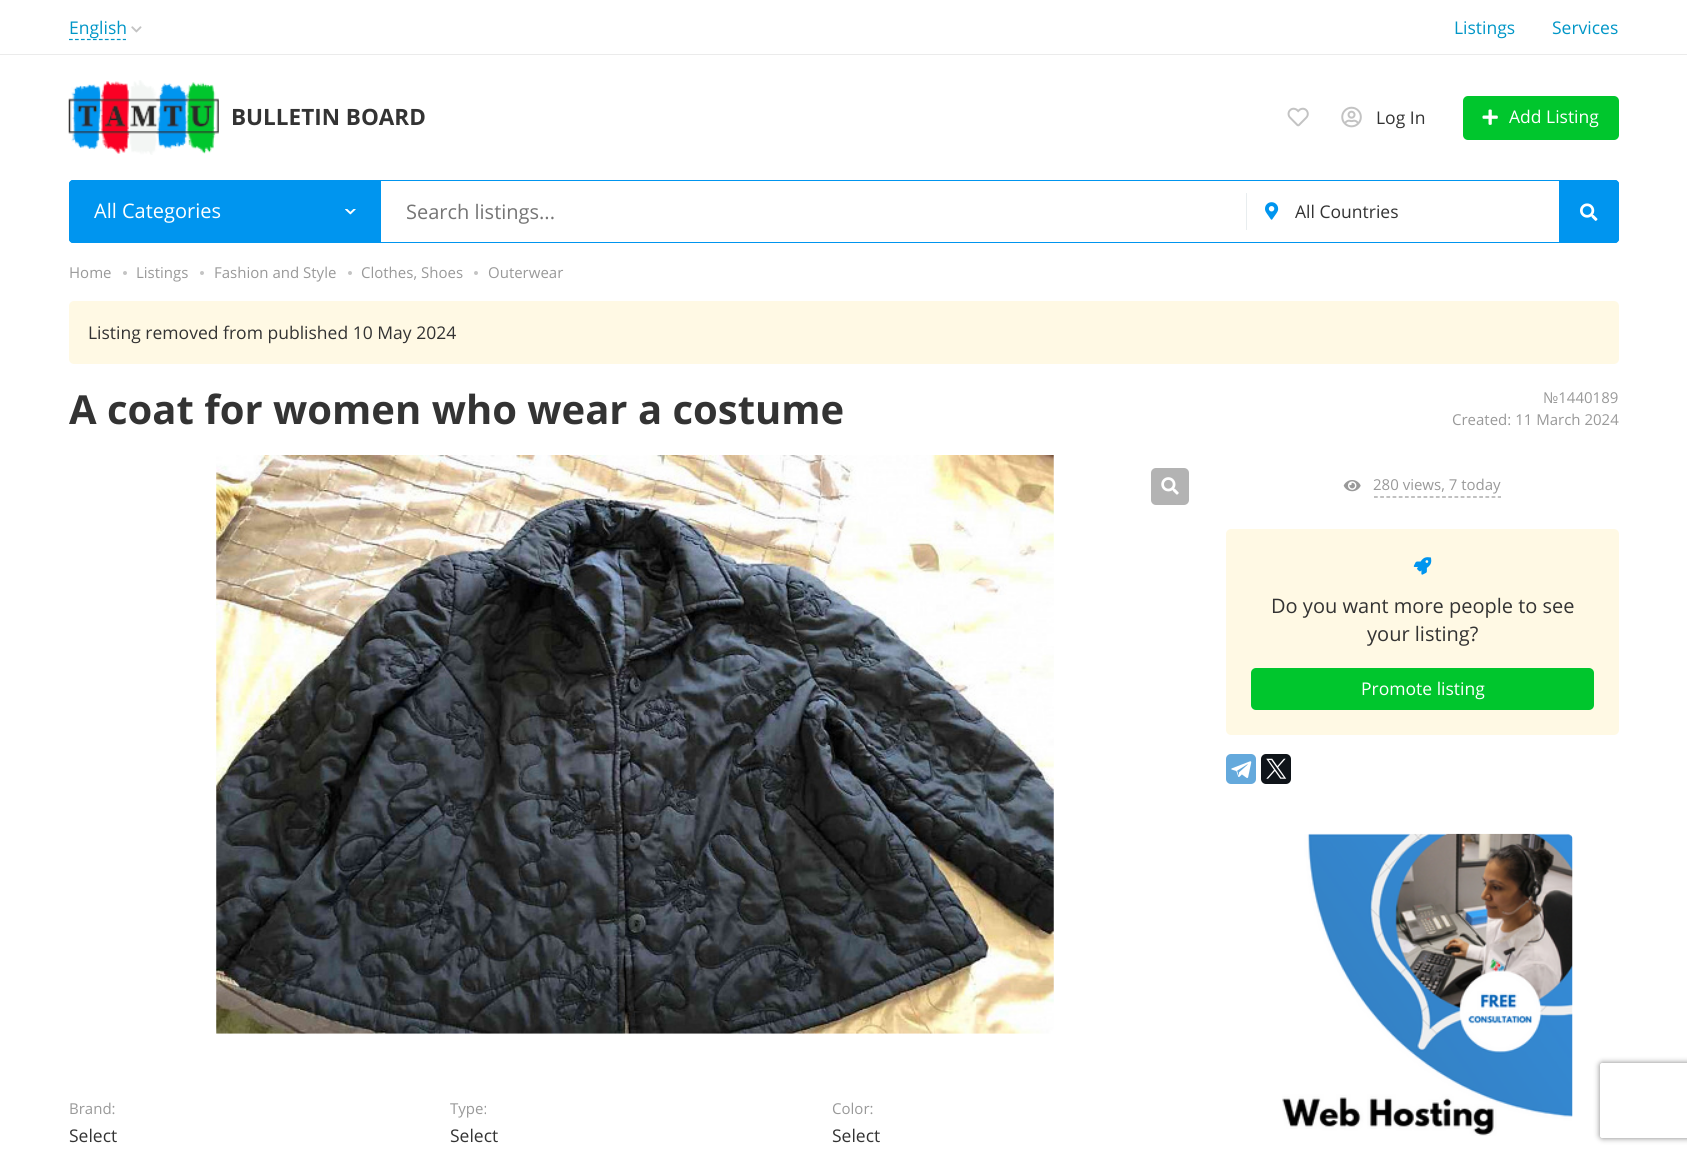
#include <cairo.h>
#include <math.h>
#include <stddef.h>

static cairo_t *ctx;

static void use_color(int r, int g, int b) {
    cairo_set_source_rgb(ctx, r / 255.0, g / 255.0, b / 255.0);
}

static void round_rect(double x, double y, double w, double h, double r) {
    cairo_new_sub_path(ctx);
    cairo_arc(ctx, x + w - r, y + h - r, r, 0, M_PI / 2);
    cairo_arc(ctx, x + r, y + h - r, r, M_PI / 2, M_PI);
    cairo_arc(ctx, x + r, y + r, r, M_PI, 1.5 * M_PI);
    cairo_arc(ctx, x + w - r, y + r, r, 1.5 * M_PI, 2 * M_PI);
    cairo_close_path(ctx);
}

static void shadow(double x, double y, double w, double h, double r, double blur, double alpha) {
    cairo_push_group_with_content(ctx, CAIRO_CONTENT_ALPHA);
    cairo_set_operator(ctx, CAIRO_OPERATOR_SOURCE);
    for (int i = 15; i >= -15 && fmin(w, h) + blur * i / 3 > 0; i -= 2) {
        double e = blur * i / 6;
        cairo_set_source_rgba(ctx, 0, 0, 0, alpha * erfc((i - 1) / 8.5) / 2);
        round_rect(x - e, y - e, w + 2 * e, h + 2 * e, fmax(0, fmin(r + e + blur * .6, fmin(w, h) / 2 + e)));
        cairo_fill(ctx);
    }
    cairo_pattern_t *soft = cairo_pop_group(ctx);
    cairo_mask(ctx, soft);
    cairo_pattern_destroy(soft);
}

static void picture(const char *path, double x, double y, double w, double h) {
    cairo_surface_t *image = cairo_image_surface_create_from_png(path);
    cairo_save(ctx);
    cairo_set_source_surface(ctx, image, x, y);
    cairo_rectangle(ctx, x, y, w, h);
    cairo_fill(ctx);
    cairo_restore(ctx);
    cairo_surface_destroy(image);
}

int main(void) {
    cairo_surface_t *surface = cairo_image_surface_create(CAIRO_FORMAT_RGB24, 1687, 1155);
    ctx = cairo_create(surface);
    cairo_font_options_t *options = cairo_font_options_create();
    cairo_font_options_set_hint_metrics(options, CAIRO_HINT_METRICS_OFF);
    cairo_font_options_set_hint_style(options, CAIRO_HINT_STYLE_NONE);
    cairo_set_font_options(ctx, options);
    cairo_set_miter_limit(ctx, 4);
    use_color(255, 255, 255);
    cairo_paint(ctx);
    use_color(235, 235, 235);
    cairo_rectangle(ctx, 0, 54, 1687, 1);
    cairo_fill(ctx);
    cairo_new_path(ctx);
    cairo_move_to(ctx, 69, 39.5);
    cairo_line_to(ctx, 126, 39.5);
    use_color(0, 150, 199);
    cairo_set_line_width(ctx, 1.2);
    cairo_set_dash(ctx, (double[]){3.75, 2.23}, 2, 0);
    cairo_stroke(ctx);
    cairo_select_font_face(ctx, "Open Sans", CAIRO_FONT_SLANT_NORMAL, CAIRO_FONT_WEIGHT_NORMAL);
    cairo_set_font_size(ctx, 17.5);
    cairo_move_to(ctx, 69, 34);
    cairo_show_text(ctx, "English");
    picture("img1.png", 131, 26, 11, 7);
    cairo_move_to(ctx, 1454, 34);
    cairo_show_text(ctx, "Listings");
    cairo_move_to(ctx, 1552, 34);
    cairo_show_text(ctx, "Services");
    picture("img2.png", 68, 80, 151, 75);
    cairo_select_font_face(ctx, "Open Sans", CAIRO_FONT_SLANT_NORMAL, CAIRO_FONT_WEIGHT_BOLD);
    cairo_set_font_size(ctx, 22.5);
    use_color(51, 51, 51);
    cairo_move_to(ctx, 231, 125);
    cairo_show_text(ctx, "BULLETIN BOARD");
    picture("img3.png", 1287, 107, 22, 20);
    picture("img4.png", 1341, 106, 21, 22);
    cairo_select_font_face(ctx, "Open Sans", CAIRO_FONT_SLANT_NORMAL, CAIRO_FONT_WEIGHT_NORMAL);
    cairo_set_font_size(ctx, 17.5);
    cairo_move_to(ctx, 1376, 124);
    cairo_show_text(ctx, "Log In");
    use_color(0, 198, 45);
    round_rect(1463, 96, 156, 44, 5);
    cairo_fill(ctx);
    picture("img5.png", 1482, 109, 16, 16);
    use_color(255, 255, 255);
    cairo_move_to(ctx, 1509, 123);
    cairo_show_text(ctx, "Add Listing");
    round_rect(69.5, 180.5, 1549, 62, 3.5);
    use_color(0, 149, 239);
    cairo_set_line_width(ctx, 1);
    cairo_set_dash(ctx, NULL, 0, 0);
    cairo_stroke(ctx);
    cairo_new_path(ctx);
    cairo_move_to(ctx, 73, 180);
    cairo_line_to(ctx, 381, 180);
    cairo_line_to(ctx, 381, 243);
    cairo_line_to(ctx, 73, 243);
    cairo_curve_to(ctx, 71, 243, 69, 241, 69, 239);
    cairo_line_to(ctx, 69, 184);
    cairo_curve_to(ctx, 69, 182, 71, 180, 73, 180);
    cairo_close_path(ctx);
    cairo_fill(ctx);
    cairo_set_font_size(ctx, 20);
    use_color(255, 255, 255);
    cairo_move_to(ctx, 94, 218);
    cairo_show_text(ctx, "All Categories");
    picture("img6.png", 345, 209, 11, 6);
    use_color(117, 117, 117);
    cairo_move_to(ctx, 406, 219);
    cairo_show_text(ctx, "Search listings...");
    use_color(232, 237, 239);
    cairo_rectangle(ctx, 1246, 193, 1, 37);
    cairo_fill(ctx);
    picture("img7.png", 1265, 202, 14, 18);
    cairo_set_font_size(ctx, 17.5);
    use_color(51, 51, 51);
    cairo_move_to(ctx, 1295, 218);
    cairo_show_text(ctx, "All Countries");
    use_color(0, 149, 239);
    cairo_new_path(ctx);
    cairo_move_to(ctx, 1559, 180);
    cairo_line_to(ctx, 1615, 180);
    cairo_curve_to(ctx, 1617, 180, 1619, 182, 1619, 184);
    cairo_line_to(ctx, 1619, 239);
    cairo_curve_to(ctx, 1619, 241, 1617, 243, 1615, 243);
    cairo_line_to(ctx, 1559, 243);
    cairo_close_path(ctx);
    cairo_fill(ctx);
    picture("img8.png", 1580, 203, 18, 18);
    cairo_set_font_size(ctx, 15);
    use_color(153, 153, 153);
    cairo_move_to(ctx, 69, 278);
    cairo_show_text(ctx, "Home");
    use_color(196, 196, 196);
    cairo_new_path(ctx);
    cairo_arc(ctx, 125, 273, 2, 0, 2 * M_PI);
    cairo_fill(ctx);
    use_color(153, 153, 153);
    cairo_move_to(ctx, 136, 278);
    cairo_show_text(ctx, "Listings");
    use_color(196, 196, 196);
    cairo_new_path(ctx);
    cairo_arc(ctx, 202, 273, 2, 0, 2 * M_PI);
    cairo_fill(ctx);
    use_color(153, 153, 153);
    cairo_move_to(ctx, 214, 278);
    cairo_show_text(ctx, "Fashion and Style");
    use_color(196, 196, 196);
    cairo_new_path(ctx);
    cairo_arc(ctx, 350, 273, 2, 0, 2 * M_PI);
    cairo_fill(ctx);
    use_color(153, 153, 153);
    cairo_move_to(ctx, 361, 278);
    cairo_show_text(ctx, "Clothes, Shoes");
    use_color(196, 196, 196);
    cairo_new_path(ctx);
    cairo_arc(ctx, 476, 273, 2, 0, 2 * M_PI);
    cairo_fill(ctx);
    use_color(153, 153, 153);
    cairo_move_to(ctx, 488, 278);
    cairo_show_text(ctx, "Outerwear");
    use_color(255, 249, 228);
    round_rect(69, 301, 1550, 63, 5);
    cairo_fill(ctx);
    cairo_set_font_size(ctx, 17.5);
    use_color(51, 51, 51);
    cairo_move_to(ctx, 88, 339);
    cairo_show_text(ctx, "Listing removed from published 10 May 2024");
    cairo_select_font_face(ctx, "Open Sans", CAIRO_FONT_SLANT_NORMAL, CAIRO_FONT_WEIGHT_BOLD);
    cairo_set_font_size(ctx, 40);
    cairo_move_to(ctx, 69, 424);
    cairo_show_text(ctx, "A coat for women who wear a costume");
    cairo_select_font_face(ctx, "Open Sans", CAIRO_FONT_SLANT_NORMAL, CAIRO_FONT_WEIGHT_NORMAL);
    cairo_set_font_size(ctx, 15);
    use_color(153, 153, 153);
    cairo_move_to(ctx, 1543, 403);
    cairo_show_text(ctx, "№1440189");
    cairo_move_to(ctx, 1452, 425);
    cairo_show_text(ctx, "Created: 11 March 2024");
    picture("img9.png", 1343, 480, 18, 12);
    cairo_new_path(ctx);
    cairo_move_to(ctx, 1374, 497);
    cairo_line_to(ctx, 1501, 497);
    cairo_set_line_width(ctx, 1.2);
    cairo_set_dash(ctx, (double[]){3.75, 2.44}, 2, 0);
    cairo_stroke(ctx);
    cairo_move_to(ctx, 1373, 490);
    cairo_show_text(ctx, "280 views, 7 today");
    use_color(255, 249, 228);
    round_rect(1226, 529, 393, 206, 5);
    cairo_fill(ctx);
    picture("img10.png", 1413, 557, 19, 18);
    cairo_set_font_size(ctx, 20);
    use_color(51, 51, 51);
    cairo_move_to(ctx, 1271, 613);
    cairo_show_text(ctx, "Do you want more people to see");
    cairo_move_to(ctx, 1367, 641);
    cairo_show_text(ctx, "your listing?");
    use_color(0, 198, 45);
    round_rect(1251, 668, 343, 42, 5);
    cairo_fill(ctx);
    cairo_set_font_size(ctx, 17.5);
    use_color(255, 255, 255);
    cairo_move_to(ctx, 1361, 695);
    cairo_show_text(ctx, "Promote listing");
    use_color(100, 169, 220);
    round_rect(1226, 754, 30, 30, 5);
    cairo_fill(ctx);
    picture("img11.png", 1231, 761, 21, 17);
    use_color(15, 20, 25);
    round_rect(1261, 754, 30, 30, 5);
    cairo_fill(ctx);
    picture("img12.png", 1266, 758, 21, 21);
    picture("img13.png", 1282, 833, 291, 303);
    picture("img14.png", 216, 455, 838, 579);
    use_color(179, 179, 179);
    round_rect(1151, 468, 38, 37, 5);
    cairo_fill(ctx);
    picture("img15.png", 1161, 477, 18, 18);
    cairo_set_font_size(ctx, 15);
    use_color(153, 153, 153);
    cairo_move_to(ctx, 69, 1114);
    cairo_show_text(ctx, "Brand:");
    cairo_set_font_size(ctx, 17.5);
    use_color(51, 51, 51);
    cairo_move_to(ctx, 69, 1142);
    cairo_show_text(ctx, "Select");
    cairo_set_font_size(ctx, 15);
    use_color(153, 153, 153);
    cairo_move_to(ctx, 450, 1114);
    cairo_show_text(ctx, "Type:");
    cairo_set_font_size(ctx, 17.5);
    use_color(51, 51, 51);
    cairo_move_to(ctx, 450, 1142);
    cairo_show_text(ctx, "Select");
    cairo_set_font_size(ctx, 15);
    use_color(153, 153, 153);
    cairo_move_to(ctx, 832, 1114);
    cairo_show_text(ctx, "Color:");
    cairo_set_font_size(ctx, 17.5);
    use_color(51, 51, 51);
    cairo_move_to(ctx, 832, 1142);
    cairo_show_text(ctx, "Select");
    cairo_save(ctx);
    cairo_set_fill_rule(ctx, CAIRO_FILL_RULE_EVEN_ODD);
    cairo_new_path(ctx);
    cairo_move_to(ctx, 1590, 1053);
    cairo_line_to(ctx, 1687, 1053);
    cairo_line_to(ctx, 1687, 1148);
    cairo_line_to(ctx, 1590, 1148);
    cairo_close_path(ctx);
    cairo_move_to(ctx, 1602.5, 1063);
    cairo_line_to(ctx, 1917.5, 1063);
    cairo_curve_to(ctx, 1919, 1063, 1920, 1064, 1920, 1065.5);
    cairo_line_to(ctx, 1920, 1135.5);
    cairo_curve_to(ctx, 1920, 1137, 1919, 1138, 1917.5, 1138);
    cairo_line_to(ctx, 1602.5, 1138);
    cairo_curve_to(ctx, 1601, 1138, 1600, 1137, 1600, 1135.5);
    cairo_line_to(ctx, 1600, 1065.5);
    cairo_curve_to(ctx, 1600, 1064, 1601, 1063, 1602.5, 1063);
    cairo_close_path(ctx);
    cairo_clip(ctx);
    use_color(128, 128, 128);
    shadow(1600, 1063, 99, 75, 2.5, 3, 1);
    cairo_restore(ctx);
    cairo_surface_write_to_png(surface, "result.png");
    cairo_font_options_destroy(options);
    cairo_destroy(ctx);
    cairo_surface_destroy(surface);
    return 0;
}
